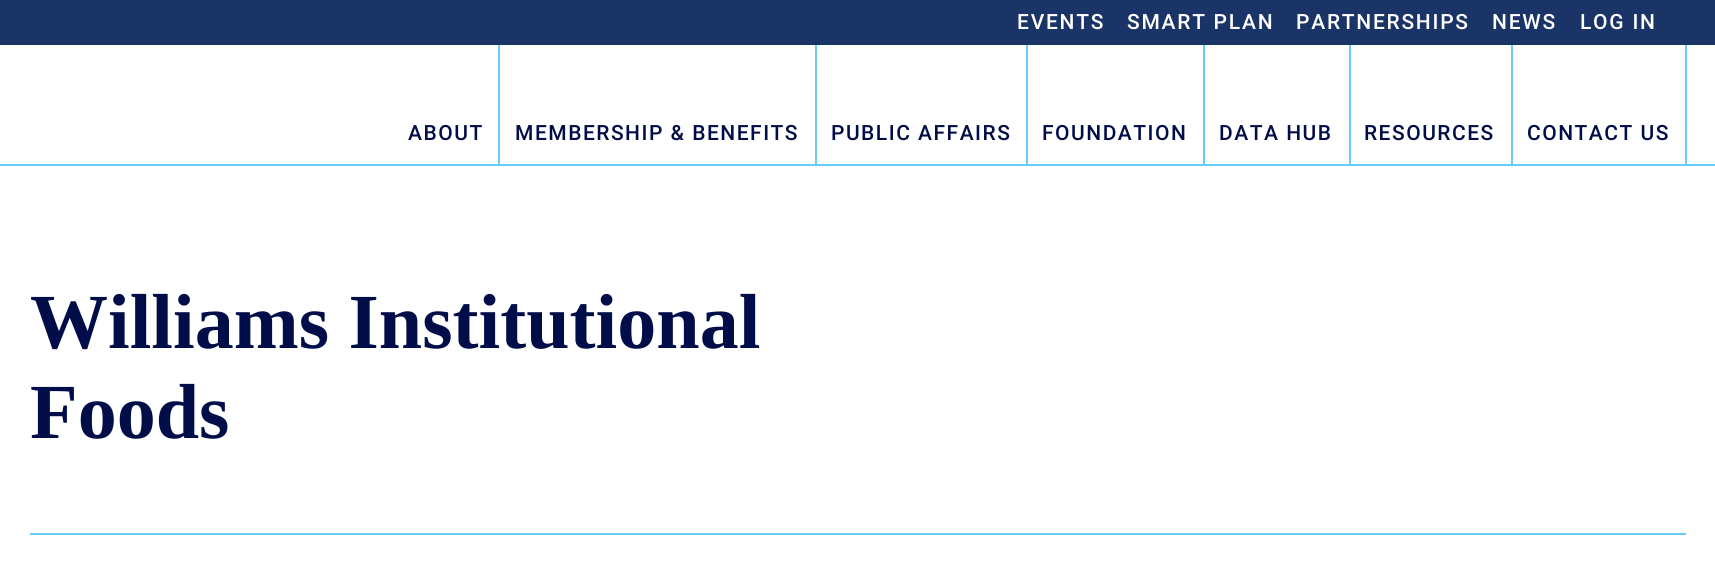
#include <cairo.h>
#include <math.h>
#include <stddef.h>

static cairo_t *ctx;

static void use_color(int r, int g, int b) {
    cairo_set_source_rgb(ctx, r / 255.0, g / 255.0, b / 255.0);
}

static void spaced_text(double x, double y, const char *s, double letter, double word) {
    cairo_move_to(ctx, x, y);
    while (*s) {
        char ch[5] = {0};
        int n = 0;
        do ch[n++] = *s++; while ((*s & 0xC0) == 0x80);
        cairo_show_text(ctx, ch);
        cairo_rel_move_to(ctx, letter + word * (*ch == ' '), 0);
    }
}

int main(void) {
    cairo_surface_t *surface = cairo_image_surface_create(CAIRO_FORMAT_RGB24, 1715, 583);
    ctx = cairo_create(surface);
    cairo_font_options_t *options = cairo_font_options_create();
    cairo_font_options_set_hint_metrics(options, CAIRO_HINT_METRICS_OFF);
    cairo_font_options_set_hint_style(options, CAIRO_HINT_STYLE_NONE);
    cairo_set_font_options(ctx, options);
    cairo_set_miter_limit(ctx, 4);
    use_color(255, 255, 255);
    cairo_paint(ctx);
    use_color(27, 52, 103);
    cairo_rectangle(ctx, 0, 0, 1715, 45);
    cairo_fill(ctx);
    cairo_select_font_face(ctx, "Roboto Medium", CAIRO_FONT_SLANT_NORMAL, CAIRO_FONT_WEIGHT_NORMAL);
    cairo_set_font_size(ctx, 21);
    use_color(255, 255, 255);
    spaced_text(1017, 29, "EVENTS", 1.75, 0);
    spaced_text(1127, 29, "SMART PLAN", 1.75, 0);
    spaced_text(1296, 29, "PARTNERSHIPS", 1.75, 0);
    spaced_text(1492, 29, "NEWS", 1.75, 0);
    spaced_text(1580, 29, "LOG IN", 1.75, 0);
    use_color(102, 205, 244);
    cairo_rectangle(ctx, 0, 164, 1715, 2);
    cairo_fill(ctx);
    cairo_rectangle(ctx, 498, 45, 2, 119);
    cairo_fill(ctx);
    use_color(0, 13, 72);
    spaced_text(408, 140, "ABOUT", 1.5, 0);
    use_color(102, 205, 244);
    cairo_rectangle(ctx, 815, 45, 2, 119);
    cairo_fill(ctx);
    use_color(0, 13, 72);
    spaced_text(515, 140, "MEMBERSHIP & BENEFITS", 1.5, 0);
    use_color(102, 205, 244);
    cairo_rectangle(ctx, 1026, 45, 2, 119);
    cairo_fill(ctx);
    use_color(0, 13, 72);
    spaced_text(831, 140, "PUBLIC AFFAIRS", 1.5, 0);
    use_color(102, 205, 244);
    cairo_rectangle(ctx, 1203, 45, 2, 119);
    cairo_fill(ctx);
    use_color(0, 13, 72);
    spaced_text(1042, 140, "FOUNDATION", 1.5, 0);
    use_color(102, 205, 244);
    cairo_rectangle(ctx, 1349, 45, 2, 119);
    cairo_fill(ctx);
    use_color(0, 13, 72);
    spaced_text(1219, 140, "DATA HUB", 1.5, 0);
    use_color(102, 205, 244);
    cairo_rectangle(ctx, 1511, 45, 2, 119);
    cairo_fill(ctx);
    use_color(0, 13, 72);
    spaced_text(1364, 140, "RESOURCES", 1.5, 0);
    use_color(102, 205, 244);
    cairo_rectangle(ctx, 1685, 45, 2, 119);
    cairo_fill(ctx);
    use_color(0, 13, 72);
    spaced_text(1527, 140, "CONTACT US", 1.5, 0);
    use_color(102, 205, 244);
    cairo_rectangle(ctx, 30, 533, 1656, 2);
    cairo_fill(ctx);
    cairo_select_font_face(ctx, "Liberation Serif", CAIRO_FONT_SLANT_NORMAL, CAIRO_FONT_WEIGHT_BOLD);
    cairo_set_font_size(ctx, 78);
    use_color(0, 13, 72);
    cairo_move_to(ctx, 30, 348);
    cairo_show_text(ctx, "Williams Institutional");
    cairo_move_to(ctx, 30, 438);
    cairo_show_text(ctx, "Foods");
    cairo_surface_write_to_png(surface, "result.png");
    cairo_font_options_destroy(options);
    cairo_destroy(ctx);
    cairo_surface_destroy(surface);
    return 0;
}
